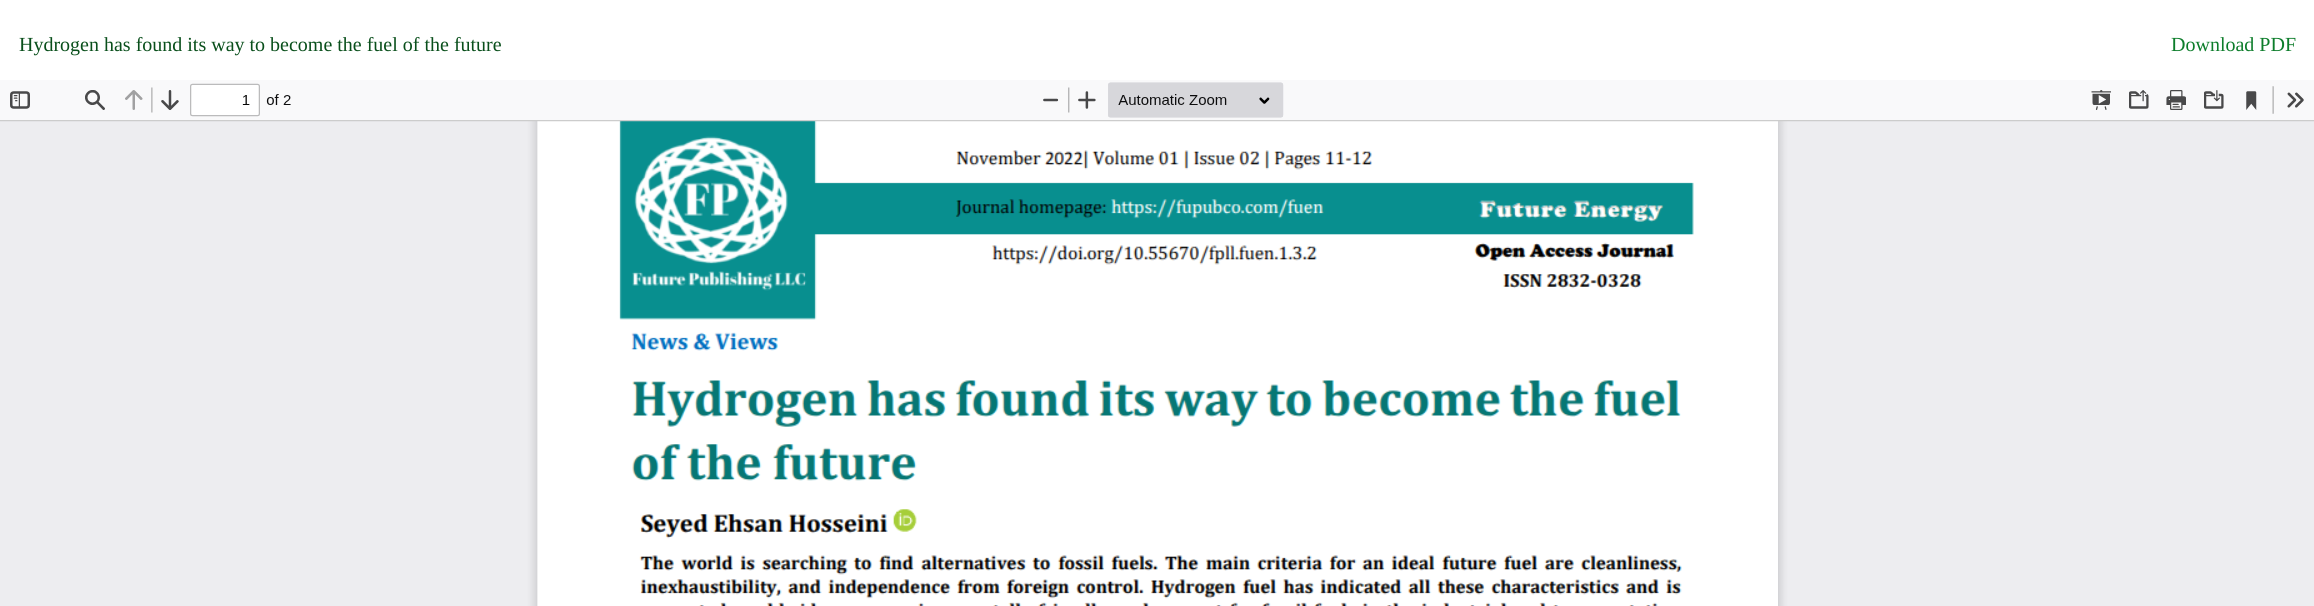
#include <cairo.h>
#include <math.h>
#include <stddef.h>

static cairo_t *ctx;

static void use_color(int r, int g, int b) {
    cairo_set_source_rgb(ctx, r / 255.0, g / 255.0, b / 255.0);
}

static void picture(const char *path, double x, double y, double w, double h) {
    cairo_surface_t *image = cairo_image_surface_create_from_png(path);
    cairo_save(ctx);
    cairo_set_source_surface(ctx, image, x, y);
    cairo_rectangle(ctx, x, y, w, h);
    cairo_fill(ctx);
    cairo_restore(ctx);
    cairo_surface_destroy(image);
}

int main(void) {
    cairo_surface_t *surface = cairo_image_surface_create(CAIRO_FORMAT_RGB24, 2314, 606);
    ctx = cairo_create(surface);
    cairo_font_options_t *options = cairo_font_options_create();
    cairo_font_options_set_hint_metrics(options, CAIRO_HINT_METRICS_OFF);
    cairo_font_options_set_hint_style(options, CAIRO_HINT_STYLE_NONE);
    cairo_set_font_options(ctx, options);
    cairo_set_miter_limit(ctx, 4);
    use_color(255, 255, 255);
    cairo_paint(ctx);
    cairo_select_font_face(ctx, "Liberation Serif", CAIRO_FONT_SLANT_NORMAL, CAIRO_FONT_WEIGHT_NORMAL);
    cairo_set_font_size(ctx, 20);
    use_color(9, 79, 27);
    cairo_move_to(ctx, 19, 51);
    cairo_show_text(ctx, "Hydrogen has found its way to become the fuel of the future");
    use_color(13, 125, 43);
    cairo_move_to(ctx, 2171, 51);
    cairo_show_text(ctx, "Download PDF");
    picture("img1.png", 0, 80, 2314, 526);
    cairo_surface_write_to_png(surface, "result.png");
    cairo_font_options_destroy(options);
    cairo_destroy(ctx);
    cairo_surface_destroy(surface);
    return 0;
}
